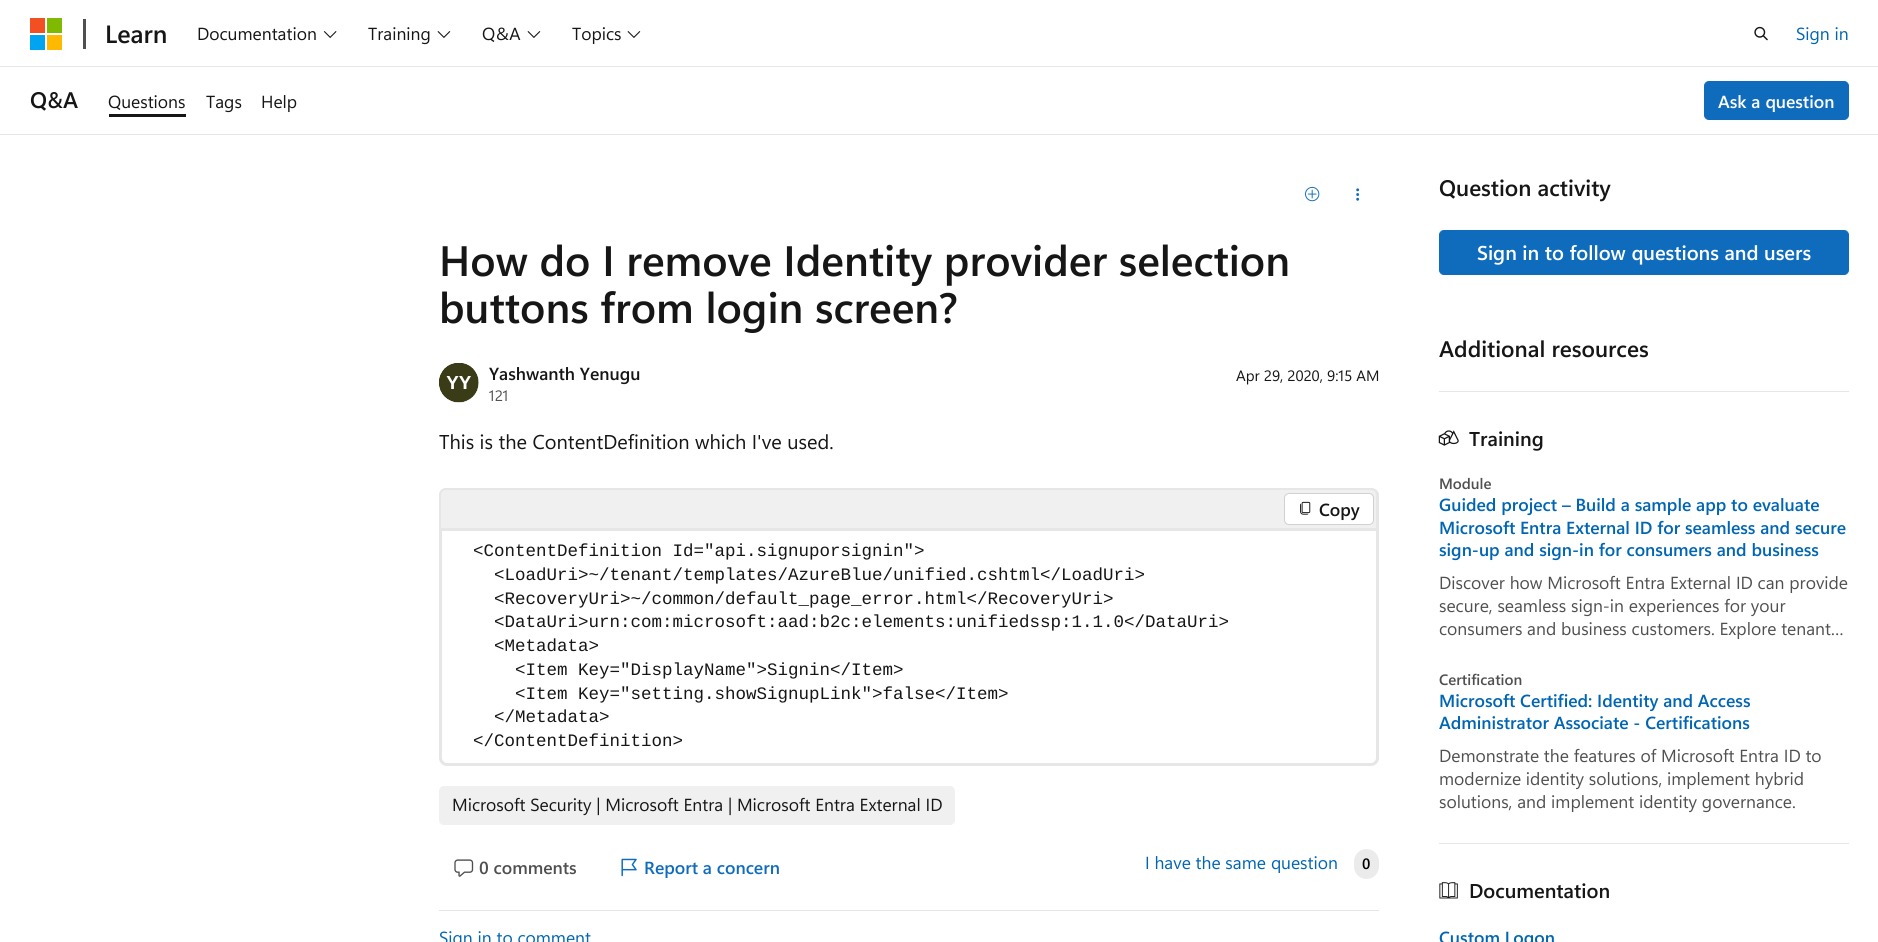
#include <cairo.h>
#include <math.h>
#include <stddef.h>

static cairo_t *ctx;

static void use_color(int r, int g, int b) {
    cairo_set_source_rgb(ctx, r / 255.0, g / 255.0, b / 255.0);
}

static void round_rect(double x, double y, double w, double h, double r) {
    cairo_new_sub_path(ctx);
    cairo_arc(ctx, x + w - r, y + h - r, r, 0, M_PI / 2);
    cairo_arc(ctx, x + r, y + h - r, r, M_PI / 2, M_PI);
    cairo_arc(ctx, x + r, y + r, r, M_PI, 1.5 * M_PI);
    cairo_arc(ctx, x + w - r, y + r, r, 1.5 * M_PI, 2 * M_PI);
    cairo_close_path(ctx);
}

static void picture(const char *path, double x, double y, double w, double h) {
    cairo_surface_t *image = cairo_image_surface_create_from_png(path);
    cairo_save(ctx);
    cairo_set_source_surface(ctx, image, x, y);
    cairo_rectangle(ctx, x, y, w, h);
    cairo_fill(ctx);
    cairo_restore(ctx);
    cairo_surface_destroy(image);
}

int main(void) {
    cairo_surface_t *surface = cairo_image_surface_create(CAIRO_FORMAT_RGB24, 1878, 942);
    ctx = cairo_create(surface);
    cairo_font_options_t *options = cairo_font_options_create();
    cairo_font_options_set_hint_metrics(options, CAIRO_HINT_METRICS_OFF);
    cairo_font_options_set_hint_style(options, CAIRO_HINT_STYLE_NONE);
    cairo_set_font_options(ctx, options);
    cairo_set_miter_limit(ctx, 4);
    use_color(255, 255, 255);
    cairo_paint(ctx);
    use_color(230, 230, 230);
    cairo_rectangle(ctx, 0, 66, 1878, 1);
    cairo_fill(ctx);
    use_color(242, 80, 34);
    cairo_rectangle(ctx, 30, 18, 15, 15);
    cairo_fill(ctx);
    use_color(127, 186, 0);
    cairo_rectangle(ctx, 47, 18, 15, 15);
    cairo_fill(ctx);
    use_color(0, 164, 239);
    cairo_rectangle(ctx, 30, 35, 15, 15);
    cairo_fill(ctx);
    use_color(255, 185, 0);
    cairo_rectangle(ctx, 47, 35, 15, 15);
    cairo_fill(ctx);
    use_color(80, 80, 80);
    cairo_rectangle(ctx, 83, 19, 3, 30);
    cairo_fill(ctx);
    cairo_select_font_face(ctx, "Segoe UI SemiBold", CAIRO_FONT_SLANT_NORMAL, CAIRO_FONT_WEIGHT_NORMAL);
    cairo_set_font_size(ctx, 25);
    use_color(22, 22, 22);
    cairo_move_to(ctx, 105, 43);
    cairo_show_text(ctx, "Learn");
    cairo_select_font_face(ctx, "Segoe UI", CAIRO_FONT_SLANT_NORMAL, CAIRO_FONT_WEIGHT_NORMAL);
    cairo_set_font_size(ctx, 17.5);
    cairo_move_to(ctx, 197, 40);
    cairo_show_text(ctx, "Documentation");
    picture("img1.png", 323, 31, 14, 7);
    cairo_move_to(ctx, 368, 40);
    cairo_show_text(ctx, "Training");
    picture("img2.png", 437, 31, 14, 7);
    cairo_move_to(ctx, 482, 40);
    cairo_show_text(ctx, "Q&A");
    picture("img2.png", 527, 31, 14, 7);
    cairo_move_to(ctx, 572, 40);
    cairo_show_text(ctx, "Topics");
    picture("img2.png", 627, 31, 14, 7);
    picture("img3.png", 1754, 26, 14, 15);
    use_color(0, 101, 179);
    cairo_move_to(ctx, 1796, 40);
    cairo_show_text(ctx, "Sign in");
    use_color(230, 230, 230);
    cairo_rectangle(ctx, 0, 134, 1878, 1);
    cairo_fill(ctx);
    cairo_select_font_face(ctx, "Segoe UI SemiBold", CAIRO_FONT_SLANT_NORMAL, CAIRO_FONT_WEIGHT_NORMAL);
    cairo_set_font_size(ctx, 22.5);
    use_color(22, 22, 22);
    cairo_move_to(ctx, 30, 108);
    cairo_show_text(ctx, "Q&A");
    cairo_select_font_face(ctx, "Segoe UI", CAIRO_FONT_SLANT_NORMAL, CAIRO_FONT_WEIGHT_NORMAL);
    cairo_set_font_size(ctx, 17.5);
    cairo_move_to(ctx, 108, 108);
    cairo_show_text(ctx, "Questions");
    cairo_rectangle(ctx, 109, 114, 77, 3);
    cairo_fill(ctx);
    cairo_move_to(ctx, 206, 108);
    cairo_show_text(ctx, "Tags");
    cairo_move_to(ctx, 261, 108);
    cairo_show_text(ctx, "Help");
    use_color(15, 108, 189);
    round_rect(1704.5, 81.5, 144, 38, 4.5);
    cairo_fill_preserve(ctx);
    cairo_set_line_width(ctx, 1);
    cairo_stroke(ctx);
    cairo_select_font_face(ctx, "Segoe UI SemiBold", CAIRO_FONT_SLANT_NORMAL, CAIRO_FONT_WEIGHT_NORMAL);
    use_color(255, 255, 255);
    cairo_move_to(ctx, 1718, 108);
    cairo_show_text(ctx, "Ask a question");
    picture("img4.png", 1305, 186, 15, 16);
    picture("img5.png", 1356, 188, 4, 13);
    cairo_set_font_size(ctx, 42.5);
    use_color(22, 22, 22);
    cairo_move_to(ctx, 439, 276);
    cairo_show_text(ctx, "How do I remove Identity provider selection");
    cairo_move_to(ctx, 439, 323);
    cairo_show_text(ctx, "buttons from login screen?");
    use_color(242, 242, 242);
    cairo_new_path(ctx);
    cairo_arc(ctx, 459, 383, 20, 0, 2 * M_PI);
    cairo_fill(ctx);
    picture("img6.png", 439, 363, 40, 40);
    cairo_set_font_size(ctx, 17.5);
    use_color(22, 22, 22);
    cairo_move_to(ctx, 489, 380);
    cairo_show_text(ctx, "Yashwanth Yenugu");
    cairo_select_font_face(ctx, "Segoe UI", CAIRO_FONT_SLANT_NORMAL, CAIRO_FONT_WEIGHT_NORMAL);
    cairo_set_font_size(ctx, 15);
    use_color(80, 80, 80);
    cairo_move_to(ctx, 489, 401);
    cairo_show_text(ctx, "121");
    use_color(22, 22, 22);
    cairo_move_to(ctx, 1236, 381);
    cairo_show_text(ctx, "Apr 29, 2020, 9:15 AM");
    cairo_set_font_size(ctx, 20);
    cairo_move_to(ctx, 439, 449);
    cairo_show_text(ctx, "This is the ContentDefinition which I've used.");
    use_color(240, 240, 240);
    cairo_new_path(ctx);
    cairo_move_to(ctx, 447, 488);
    cairo_line_to(ctx, 1371, 488);
    cairo_curve_to(ctx, 1375.5, 488, 1379, 491.5, 1379, 496);
    cairo_line_to(ctx, 1379, 528);
    cairo_line_to(ctx, 439, 528);
    cairo_line_to(ctx, 439, 496);
    cairo_curve_to(ctx, 439, 491.5, 442.5, 488, 447, 488);
    cairo_close_path(ctx);
    cairo_fill(ctx);
    use_color(230, 230, 230);
    cairo_set_fill_rule(ctx, CAIRO_FILL_RULE_EVEN_ODD);
    cairo_new_path(ctx);
    cairo_move_to(ctx, 446, 488);
    cairo_line_to(ctx, 1371, 488);
    cairo_curve_to(ctx, 1375, 488, 1379, 491, 1379, 495);
    cairo_line_to(ctx, 1379, 528);
    cairo_line_to(ctx, 439, 528);
    cairo_line_to(ctx, 439, 495);
    cairo_curve_to(ctx, 439, 491, 442, 488, 446, 488);
    cairo_close_path(ctx);
    cairo_move_to(ctx, 446, 490);
    cairo_line_to(ctx, 1371, 490);
    cairo_curve_to(ctx, 1374, 490, 1376, 492, 1376, 495);
    cairo_line_to(ctx, 1376, 528);
    cairo_line_to(ctx, 441, 528);
    cairo_line_to(ctx, 441, 495);
    cairo_curve_to(ctx, 441, 492, 443, 490, 446, 490);
    cairo_close_path(ctx);
    cairo_fill(ctx);
    use_color(255, 255, 255);
    round_rect(1284.5, 493.5, 89, 31, 4.5);
    cairo_fill_preserve(ctx);
    use_color(209, 209, 209);
    cairo_stroke(ctx);
    picture("img7.png", 1300, 501, 11, 14);
    cairo_select_font_face(ctx, "Segoe UI SemiBold", CAIRO_FONT_SLANT_NORMAL, CAIRO_FONT_WEIGHT_NORMAL);
    cairo_set_font_size(ctx, 17.5);
    use_color(22, 22, 22);
    cairo_move_to(ctx, 1319, 516);
    cairo_show_text(ctx, "Copy");
    cairo_new_path(ctx);
    cairo_move_to(ctx, 440.5, 529.5);
    cairo_line_to(ctx, 1377.5, 529.5);
    cairo_line_to(ctx, 1377.5, 758);
    cairo_curve_to(ctx, 1377.5, 761.5, 1374.5, 764.5, 1371, 764.5);
    cairo_line_to(ctx, 447, 764.5);
    cairo_curve_to(ctx, 443.5, 764.5, 440.5, 761.5, 440.5, 758);
    cairo_close_path(ctx);
    use_color(230, 230, 230);
    cairo_set_line_width(ctx, 3);
    cairo_stroke(ctx);
    cairo_select_font_face(ctx, "Liberation Mono", CAIRO_FONT_SLANT_NORMAL, CAIRO_FONT_WEIGHT_NORMAL);
    use_color(22, 22, 22);
    cairo_move_to(ctx, 473, 556);
    cairo_show_text(ctx, "<ContentDefinition Id=\"api.signuporsignin\">");
    cairo_move_to(ctx, 494, 580);
    cairo_show_text(ctx, "<LoadUri>~/tenant/templates/AzureBlue/unified.cshtml</LoadUri>");
    cairo_move_to(ctx, 494, 604);
    cairo_show_text(ctx, "<RecoveryUri>~/common/default_page_error.html</RecoveryUri>");
    cairo_move_to(ctx, 494, 627);
    cairo_show_text(ctx, "<DataUri>urn:com:microsoft:aad:b2c:elements:unifiedssp:1.1.0</DataUri>");
    cairo_move_to(ctx, 494, 651);
    cairo_show_text(ctx, "<Metadata>");
    cairo_move_to(ctx, 515, 675);
    cairo_show_text(ctx, "<Item Key=\"DisplayName\">Signin</Item>");
    cairo_move_to(ctx, 515, 699);
    cairo_show_text(ctx, "<Item Key=\"setting.showSignupLink\">false</Item>");
    cairo_move_to(ctx, 494, 722);
    cairo_show_text(ctx, "</Metadata>");
    cairo_move_to(ctx, 473, 746);
    cairo_show_text(ctx, "</ContentDefinition>");
    use_color(240, 240, 240);
    round_rect(439.5, 786.5, 515, 38, 4.5);
    cairo_fill_preserve(ctx);
    cairo_set_line_width(ctx, 1);
    cairo_stroke(ctx);
    cairo_select_font_face(ctx, "Segoe UI", CAIRO_FONT_SLANT_NORMAL, CAIRO_FONT_WEIGHT_NORMAL);
    use_color(22, 22, 22);
    cairo_move_to(ctx, 452, 811);
    cairo_show_text(ctx, "Microsoft Security | Microsoft Entra | Microsoft Entra External ID");
    picture("img8.png", 454, 859, 20, 18);
    cairo_select_font_face(ctx, "Segoe UI SemiBold", CAIRO_FONT_SLANT_NORMAL, CAIRO_FONT_WEIGHT_NORMAL);
    use_color(80, 80, 80);
    cairo_move_to(ctx, 479, 874);
    cairo_show_text(ctx, "0 comments");
    picture("img9.png", 621, 858, 16, 19);
    use_color(15, 108, 189);
    cairo_move_to(ctx, 644, 874);
    cairo_show_text(ctx, "Report a concern");
    cairo_select_font_face(ctx, "Segoe UI", CAIRO_FONT_SLANT_NORMAL, CAIRO_FONT_WEIGHT_NORMAL);
    use_color(0, 101, 179);
    cairo_move_to(ctx, 1145, 869);
    cairo_show_text(ctx, "I have the same question");
    use_color(235, 235, 235);
    round_rect(1354.5, 849.5, 24, 29, 12);
    cairo_fill_preserve(ctx);
    cairo_stroke(ctx);
    cairo_select_font_face(ctx, "Segoe UI SemiBold", CAIRO_FONT_SLANT_NORMAL, CAIRO_FONT_WEIGHT_NORMAL);
    cairo_set_font_size(ctx, 15);
    use_color(0, 0, 0);
    cairo_move_to(ctx, 1362, 869);
    cairo_show_text(ctx, "0");
    use_color(230, 230, 230);
    cairo_rectangle(ctx, 439, 910, 940, 1);
    cairo_fill(ctx);
    cairo_select_font_face(ctx, "Segoe UI", CAIRO_FONT_SLANT_NORMAL, CAIRO_FONT_WEIGHT_NORMAL);
    cairo_set_font_size(ctx, 17.5);
    use_color(0, 101, 179);
    cairo_move_to(ctx, 439, 944);
    cairo_show_text(ctx, "Sign in to comment");
    cairo_select_font_face(ctx, "Segoe UI SemiBold", CAIRO_FONT_SLANT_NORMAL, CAIRO_FONT_WEIGHT_NORMAL);
    cairo_set_font_size(ctx, 22.5);
    use_color(22, 22, 22);
    cairo_move_to(ctx, 1439, 196);
    cairo_show_text(ctx, "Question activity");
    use_color(15, 108, 189);
    round_rect(1439.5, 230.5, 409, 44, 4.5);
    cairo_fill_preserve(ctx);
    cairo_stroke(ctx);
    cairo_set_font_size(ctx, 20);
    use_color(255, 255, 255);
    cairo_move_to(ctx, 1477, 260);
    cairo_show_text(ctx, "Sign in to follow questions and users");
    cairo_set_font_size(ctx, 22.5);
    use_color(22, 22, 22);
    cairo_move_to(ctx, 1439, 357);
    cairo_show_text(ctx, "Additional resources");
    use_color(230, 230, 230);
    cairo_rectangle(ctx, 1439, 391, 410, 1);
    cairo_fill(ctx);
    picture("img10.png", 1438, 430, 21, 16);
    cairo_set_font_size(ctx, 20);
    use_color(22, 22, 22);
    cairo_move_to(ctx, 1469, 446);
    cairo_show_text(ctx, "Training");
    cairo_set_font_size(ctx, 15);
    use_color(80, 80, 80);
    cairo_move_to(ctx, 1439, 489);
    cairo_show_text(ctx, "Module");
    cairo_set_font_size(ctx, 17.5);
    use_color(0, 101, 179);
    cairo_move_to(ctx, 1439, 511);
    cairo_show_text(ctx, "Guided project – Build a sample app to evaluate");
    cairo_move_to(ctx, 1439, 534);
    cairo_show_text(ctx, "Microsoft Entra External ID for seamless and secure");
    cairo_move_to(ctx, 1439, 556);
    cairo_show_text(ctx, "sign-up and sign-in for consumers and business");
    cairo_select_font_face(ctx, "Segoe UI", CAIRO_FONT_SLANT_NORMAL, CAIRO_FONT_WEIGHT_NORMAL);
    use_color(80, 80, 80);
    cairo_move_to(ctx, 1439, 589);
    cairo_show_text(ctx, "Discover how Microsoft Entra External ID can provide");
    cairo_move_to(ctx, 1439, 612);
    cairo_show_text(ctx, "secure, seamless sign-in experiences for your");
    cairo_move_to(ctx, 1439, 635);
    cairo_show_text(ctx, "consumers and business customers. Explore tenant…");
    cairo_select_font_face(ctx, "Segoe UI SemiBold", CAIRO_FONT_SLANT_NORMAL, CAIRO_FONT_WEIGHT_NORMAL);
    cairo_set_font_size(ctx, 15);
    cairo_move_to(ctx, 1439, 685);
    cairo_show_text(ctx, "Certification");
    cairo_set_font_size(ctx, 17.5);
    use_color(0, 101, 179);
    cairo_move_to(ctx, 1439, 707);
    cairo_show_text(ctx, "Microsoft Certified: Identity and Access");
    cairo_move_to(ctx, 1439, 729);
    cairo_show_text(ctx, "Administrator Associate - Certifications");
    cairo_select_font_face(ctx, "Segoe UI", CAIRO_FONT_SLANT_NORMAL, CAIRO_FONT_WEIGHT_NORMAL);
    use_color(80, 80, 80);
    cairo_move_to(ctx, 1439, 762);
    cairo_show_text(ctx, "Demonstrate the features of Microsoft Entra ID to");
    cairo_move_to(ctx, 1439, 785);
    cairo_show_text(ctx, "modernize identity solutions, implement hybrid");
    cairo_move_to(ctx, 1439, 808);
    cairo_show_text(ctx, "solutions, and implement identity governance.");
    use_color(230, 230, 230);
    cairo_rectangle(ctx, 1439, 843, 410, 1);
    cairo_fill(ctx);
    picture("img11.png", 1439, 882, 19, 17);
    cairo_select_font_face(ctx, "Segoe UI SemiBold", CAIRO_FONT_SLANT_NORMAL, CAIRO_FONT_WEIGHT_NORMAL);
    cairo_set_font_size(ctx, 20);
    use_color(22, 22, 22);
    cairo_move_to(ctx, 1469, 898);
    cairo_show_text(ctx, "Documentation");
    cairo_set_font_size(ctx, 17.5);
    use_color(0, 101, 179);
    cairo_move_to(ctx, 1439, 944);
    cairo_show_text(ctx, "Custom Logon");
    cairo_surface_write_to_png(surface, "result.png");
    cairo_font_options_destroy(options);
    cairo_destroy(ctx);
    cairo_surface_destroy(surface);
    return 0;
}
